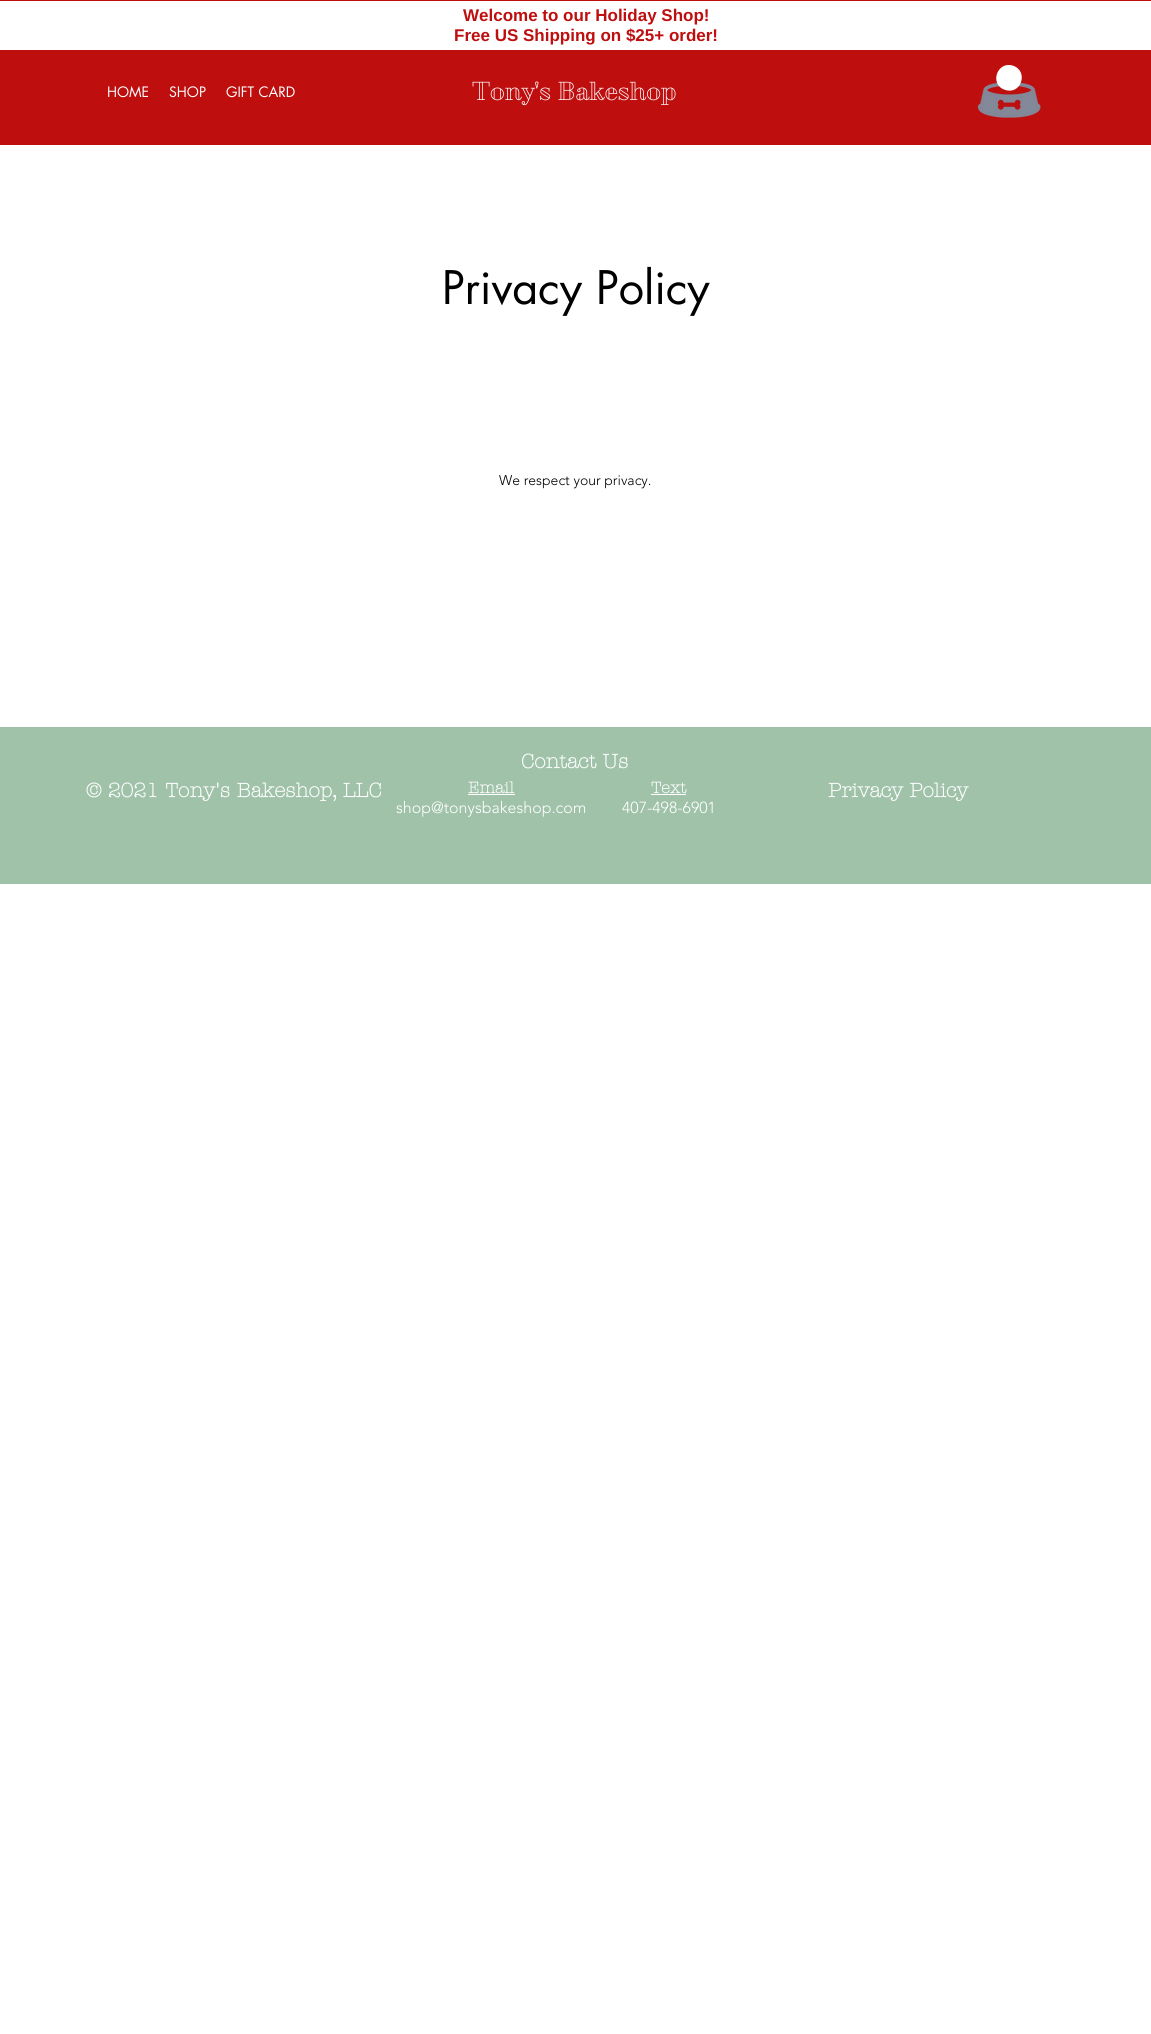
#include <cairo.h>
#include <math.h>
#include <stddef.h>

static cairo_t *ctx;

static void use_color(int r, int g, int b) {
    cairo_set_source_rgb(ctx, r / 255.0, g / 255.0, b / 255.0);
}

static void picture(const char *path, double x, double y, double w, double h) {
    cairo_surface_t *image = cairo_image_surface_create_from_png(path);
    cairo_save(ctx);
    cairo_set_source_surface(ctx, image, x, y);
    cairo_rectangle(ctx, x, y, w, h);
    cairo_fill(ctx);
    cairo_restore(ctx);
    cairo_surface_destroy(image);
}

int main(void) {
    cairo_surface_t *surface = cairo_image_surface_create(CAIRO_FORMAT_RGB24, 1151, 2034);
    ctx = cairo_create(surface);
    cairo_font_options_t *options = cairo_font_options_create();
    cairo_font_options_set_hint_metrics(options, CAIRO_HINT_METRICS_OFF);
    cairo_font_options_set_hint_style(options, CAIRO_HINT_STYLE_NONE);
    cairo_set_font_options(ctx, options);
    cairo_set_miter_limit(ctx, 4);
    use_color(255, 255, 255);
    cairo_paint(ctx);
    use_color(190, 14, 14);
    cairo_rectangle(ctx, 0, 0, 1151, 145);
    cairo_fill(ctx);
    use_color(255, 255, 255);
    cairo_rectangle(ctx, 0, 1, 1151, 49);
    cairo_fill(ctx);
    cairo_select_font_face(ctx, "Liberation Sans", CAIRO_FONT_SLANT_NORMAL, CAIRO_FONT_WEIGHT_BOLD);
    cairo_set_font_size(ctx, 17);
    use_color(190, 14, 14);
    cairo_move_to(ctx, 463, 21);
    cairo_show_text(ctx, "Welcome to our Holiday Shop!");
    cairo_move_to(ctx, 454, 41);
    cairo_show_text(ctx, "Free US Shipping on $25+ order!");
    picture("img1.png", 977, 82, 64, 36);
    use_color(255, 255, 255);
    cairo_new_path(ctx);
    cairo_move_to(ctx, 1012.5, 65.5);
    cairo_curve_to(ctx, 1029, 70.5, 1021.5, 95, 1005.5, 90);
    cairo_curve_to(ctx, 989, 85.5, 996.5, 61, 1012.5, 65.5);
    cairo_close_path(ctx);
    cairo_fill(ctx);
    cairo_select_font_face(ctx, "futura", CAIRO_FONT_SLANT_NORMAL, CAIRO_FONT_WEIGHT_NORMAL);
    cairo_set_font_size(ctx, 14);
    cairo_move_to(ctx, 107, 97);
    cairo_show_text(ctx, "HOME");
    cairo_move_to(ctx, 169, 97);
    cairo_show_text(ctx, "SHOP");
    cairo_move_to(ctx, 226, 97);
    cairo_show_text(ctx, "GIFT CARD");
    cairo_select_font_face(ctx, "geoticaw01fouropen", CAIRO_FONT_SLANT_NORMAL, CAIRO_FONT_WEIGHT_BOLD);
    cairo_set_font_size(ctx, 24);
    cairo_move_to(ctx, 472, 100);
    cairo_show_text(ctx, "Tony's Bakeshop");
    cairo_select_font_face(ctx, "futura", CAIRO_FONT_SLANT_NORMAL, CAIRO_FONT_WEIGHT_NORMAL);
    cairo_set_font_size(ctx, 45);
    use_color(0, 0, 0);
    cairo_move_to(ctx, 442, 304);
    cairo_show_text(ctx, "Privacy Policy");
    cairo_select_font_face(ctx, "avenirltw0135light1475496 Light", CAIRO_FONT_SLANT_NORMAL, CAIRO_FONT_WEIGHT_NORMAL);
    cairo_set_font_size(ctx, 14);
    cairo_move_to(ctx, 499, 485);
    cairo_show_text(ctx, "We respect your privacy.");
    use_color(159, 194, 169);
    cairo_rectangle(ctx, 0, 727, 1151, 157);
    cairo_fill(ctx);
    cairo_select_font_face(ctx, "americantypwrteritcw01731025", CAIRO_FONT_SLANT_NORMAL, CAIRO_FONT_WEIGHT_BOLD);
    cairo_set_font_size(ctx, 20);
    use_color(255, 255, 255);
    cairo_move_to(ctx, 521, 768);
    cairo_show_text(ctx, "Contact Us");
    cairo_move_to(ctx, 86, 797);
    cairo_show_text(ctx, "© 2021 Tony's Bakeshop, LLC");
    cairo_set_font_size(ctx, 16);
    cairo_move_to(ctx, 468, 793);
    cairo_show_text(ctx, "Email");
    cairo_rectangle(ctx, 468, 794, 47, 1);
    cairo_fill(ctx);
    cairo_select_font_face(ctx, "avenirltw0135light1475496 Light", CAIRO_FONT_SLANT_NORMAL, CAIRO_FONT_WEIGHT_NORMAL);
    cairo_move_to(ctx, 396, 813);
    cairo_show_text(ctx, "shop@tonysbakeshop.com");
    cairo_select_font_face(ctx, "americantypwrteritcw01731025", CAIRO_FONT_SLANT_NORMAL, CAIRO_FONT_WEIGHT_BOLD);
    cairo_move_to(ctx, 651, 793);
    cairo_show_text(ctx, "Text");
    cairo_rectangle(ctx, 651, 794, 35, 1);
    cairo_fill(ctx);
    cairo_select_font_face(ctx, "avenirltw0135light1475496 Light", CAIRO_FONT_SLANT_NORMAL, CAIRO_FONT_WEIGHT_NORMAL);
    cairo_move_to(ctx, 622, 813);
    cairo_show_text(ctx, "407-498-6901");
    cairo_select_font_face(ctx, "americantypwrteritcw01731025", CAIRO_FONT_SLANT_NORMAL, CAIRO_FONT_WEIGHT_BOLD);
    cairo_set_font_size(ctx, 20);
    cairo_move_to(ctx, 828, 797);
    cairo_show_text(ctx, "Privacy Policy");
    cairo_surface_write_to_png(surface, "result.png");
    cairo_font_options_destroy(options);
    cairo_destroy(ctx);
    cairo_surface_destroy(surface);
    return 0;
}
